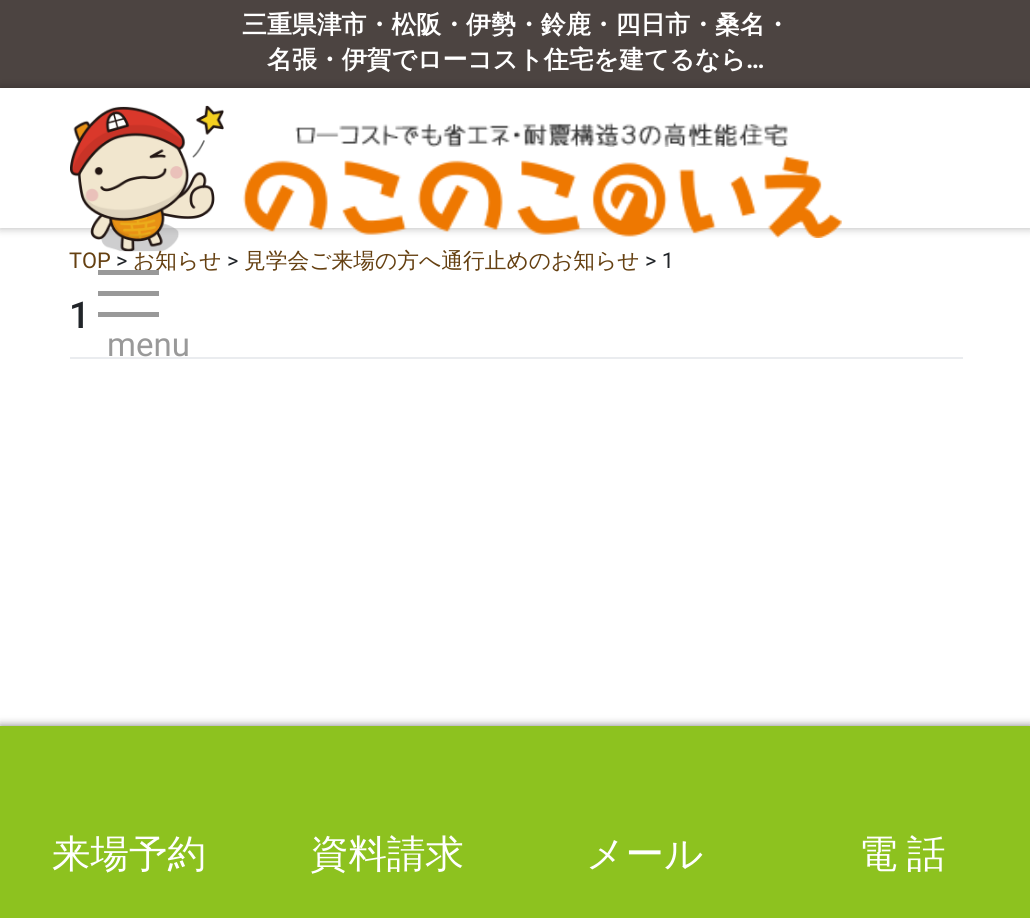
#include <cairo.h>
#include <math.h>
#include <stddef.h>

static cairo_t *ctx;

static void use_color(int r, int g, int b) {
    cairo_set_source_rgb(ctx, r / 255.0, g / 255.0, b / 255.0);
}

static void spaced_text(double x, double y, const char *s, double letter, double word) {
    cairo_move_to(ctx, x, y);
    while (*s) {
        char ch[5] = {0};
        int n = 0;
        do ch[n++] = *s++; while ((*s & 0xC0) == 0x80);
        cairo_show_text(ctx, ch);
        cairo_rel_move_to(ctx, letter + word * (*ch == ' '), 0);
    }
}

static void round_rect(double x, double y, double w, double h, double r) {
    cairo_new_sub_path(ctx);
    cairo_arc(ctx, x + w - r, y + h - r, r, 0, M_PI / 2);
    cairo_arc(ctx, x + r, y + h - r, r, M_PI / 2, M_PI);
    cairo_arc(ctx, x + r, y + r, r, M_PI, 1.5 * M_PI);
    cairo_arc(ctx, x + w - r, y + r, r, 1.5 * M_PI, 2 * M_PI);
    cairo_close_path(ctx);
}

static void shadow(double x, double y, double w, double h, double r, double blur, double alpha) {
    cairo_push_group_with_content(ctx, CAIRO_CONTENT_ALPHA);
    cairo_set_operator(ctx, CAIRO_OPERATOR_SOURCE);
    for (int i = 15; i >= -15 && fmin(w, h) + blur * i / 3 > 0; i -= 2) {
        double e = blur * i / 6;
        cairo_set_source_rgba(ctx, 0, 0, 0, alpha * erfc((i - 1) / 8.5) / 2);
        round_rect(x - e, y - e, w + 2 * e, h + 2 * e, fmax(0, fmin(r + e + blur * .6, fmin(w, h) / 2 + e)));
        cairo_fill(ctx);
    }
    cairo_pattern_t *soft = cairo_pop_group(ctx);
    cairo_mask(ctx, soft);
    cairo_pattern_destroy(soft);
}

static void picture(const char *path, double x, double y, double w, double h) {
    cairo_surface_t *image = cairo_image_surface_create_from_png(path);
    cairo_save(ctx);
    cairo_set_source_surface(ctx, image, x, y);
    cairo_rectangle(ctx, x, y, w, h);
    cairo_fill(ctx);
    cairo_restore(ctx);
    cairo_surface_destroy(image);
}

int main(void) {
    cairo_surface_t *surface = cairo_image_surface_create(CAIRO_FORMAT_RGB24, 1030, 918);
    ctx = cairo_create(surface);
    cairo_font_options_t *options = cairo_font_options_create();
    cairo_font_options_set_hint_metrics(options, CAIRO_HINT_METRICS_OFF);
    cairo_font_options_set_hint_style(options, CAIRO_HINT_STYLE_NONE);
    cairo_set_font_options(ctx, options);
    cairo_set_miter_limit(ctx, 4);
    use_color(255, 255, 255);
    cairo_paint(ctx);
    use_color(76, 68, 65);
    cairo_rectangle(ctx, 0, 0, 1030, 88);
    cairo_fill(ctx);
    cairo_select_font_face(ctx, "WenQuanYi Zen Hei", CAIRO_FONT_SLANT_NORMAL, CAIRO_FONT_WEIGHT_BOLD);
    cairo_set_font_size(ctx, 24.9);
    use_color(255, 255, 255);
    cairo_move_to(ctx, 242, 33);
    cairo_show_text(ctx, "三重県津市・松阪・伊勢・鈴鹿・四日市・桑名・");
    cairo_move_to(ctx, 267, 68);
    cairo_show_text(ctx, "名張・伊賀でローコスト住宅を建てるなら");
    cairo_select_font_face(ctx, "Roboto", CAIRO_FONT_SLANT_NORMAL, CAIRO_FONT_WEIGHT_BOLD);
    cairo_move_to(ctx, 746, 68);
    cairo_show_text(ctx, "…");
    use_color(0, 0, 0);
    shadow(0, 88, 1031, 140, 0, 4.5, 0.3);
    use_color(255, 255, 255);
    cairo_rectangle(ctx, 0, 88, 1030, 140);
    cairo_fill(ctx);
    cairo_select_font_face(ctx, "WenQuanYi Zen Hei Medium", CAIRO_FONT_SLANT_NORMAL, CAIRO_FONT_WEIGHT_NORMAL);
    cairo_set_font_size(ctx, 21.75);
    use_color(101, 64, 17);
    cairo_move_to(ctx, 133, 268);
    cairo_show_text(ctx, "お知らせ");
    picture("img1.png", 70, 105, 154, 147);
    picture("img2.png", 295, 122, 493, 25);
    picture("img3.png", 243, 155, 599, 83);
    use_color(153, 153, 153);
    cairo_rectangle(ctx, 98, 270, 61, 5);
    cairo_fill(ctx);
    cairo_rectangle(ctx, 98, 291, 61, 5);
    cairo_fill(ctx);
    cairo_rectangle(ctx, 98, 312, 61, 5);
    cairo_fill(ctx);
    cairo_select_font_face(ctx, "Roboto", CAIRO_FONT_SLANT_NORMAL, CAIRO_FONT_WEIGHT_NORMAL);
    cairo_set_font_size(ctx, 33);
    cairo_move_to(ctx, 107, 356);
    cairo_show_text(ctx, "menu");
    cairo_set_font_size(ctx, 21.75);
    use_color(101, 64, 17);
    cairo_move_to(ctx, 69, 268);
    cairo_show_text(ctx, "TOP");
    use_color(33, 37, 41);
    cairo_move_to(ctx, 116, 268);
    cairo_show_text(ctx, ">");
    cairo_move_to(ctx, 227, 268);
    cairo_show_text(ctx, ">");
    cairo_select_font_face(ctx, "WenQuanYi Zen Hei Medium", CAIRO_FONT_SLANT_NORMAL, CAIRO_FONT_WEIGHT_NORMAL);
    use_color(101, 64, 17);
    cairo_move_to(ctx, 244, 268);
    cairo_show_text(ctx, "見学会ご来場の方へ通行止めのお知らせ");
    cairo_select_font_face(ctx, "Roboto", CAIRO_FONT_SLANT_NORMAL, CAIRO_FONT_WEIGHT_NORMAL);
    use_color(33, 37, 41);
    cairo_move_to(ctx, 645, 268);
    cairo_show_text(ctx, "> 1");
    use_color(234, 236, 239);
    cairo_rectangle(ctx, 70, 357, 893, 2);
    cairo_fill(ctx);
    cairo_select_font_face(ctx, "Roboto Medium", CAIRO_FONT_SLANT_NORMAL, CAIRO_FONT_WEIGHT_NORMAL);
    cairo_set_font_size(ctx, 37);
    use_color(33, 37, 41);
    cairo_move_to(ctx, 69, 328);
    cairo_show_text(ctx, "1");
    use_color(0, 0, 0);
    shadow(0, 726, 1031, 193, 0, 4.5, 0.5);
    use_color(141, 194, 31);
    cairo_rectangle(ctx, 0, 726, 1030, 192);
    cairo_fill(ctx);
    cairo_select_font_face(ctx, "WenQuanYi Zen Hei Medium", CAIRO_FONT_SLANT_NORMAL, CAIRO_FONT_WEIGHT_NORMAL);
    cairo_set_font_size(ctx, 38.5);
    use_color(255, 255, 255);
    cairo_move_to(ctx, 52, 867);
    cairo_show_text(ctx, "来場予約");
    cairo_move_to(ctx, 310, 867);
    cairo_show_text(ctx, "資料請求");
    cairo_move_to(ctx, 586, 867);
    cairo_show_text(ctx, "メール");
    spaced_text(859, 867, "電 話", 0, -2);
    cairo_surface_write_to_png(surface, "result.png");
    cairo_font_options_destroy(options);
    cairo_destroy(ctx);
    cairo_surface_destroy(surface);
    return 0;
}
